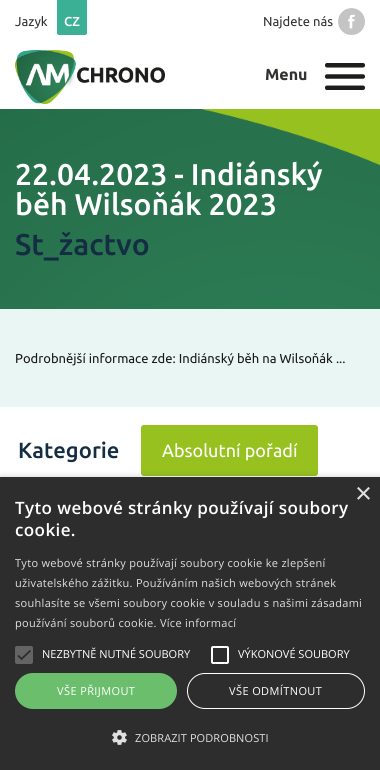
#include <cairo.h>
#include <math.h>
#include <stddef.h>

static cairo_t *ctx;

static void use_color(int r, int g, int b) {
    cairo_set_source_rgb(ctx, r / 255.0, g / 255.0, b / 255.0);
}

static void spaced_text(double x, double y, const char *s, double letter, double word) {
    cairo_move_to(ctx, x, y);
    while (*s) {
        char ch[5] = {0};
        int n = 0;
        do ch[n++] = *s++; while ((*s & 0xC0) == 0x80);
        cairo_show_text(ctx, ch);
        cairo_rel_move_to(ctx, letter + word * (*ch == ' '), 0);
    }
}

static void round_rect(double x, double y, double w, double h, double r) {
    cairo_new_sub_path(ctx);
    cairo_arc(ctx, x + w - r, y + h - r, r, 0, M_PI / 2);
    cairo_arc(ctx, x + r, y + h - r, r, M_PI / 2, M_PI);
    cairo_arc(ctx, x + r, y + r, r, M_PI, 1.5 * M_PI);
    cairo_arc(ctx, x + w - r, y + r, r, 1.5 * M_PI, 2 * M_PI);
    cairo_close_path(ctx);
}

static void shadow(double x, double y, double w, double h, double r, double blur, double alpha) {
    cairo_push_group_with_content(ctx, CAIRO_CONTENT_ALPHA);
    cairo_set_operator(ctx, CAIRO_OPERATOR_SOURCE);
    for (int i = 15; i >= -15 && fmin(w, h) + blur * i / 3 > 0; i -= 2) {
        double e = blur * i / 6;
        cairo_set_source_rgba(ctx, 0, 0, 0, alpha * erfc((i - 1) / 8.5) / 2);
        round_rect(x - e, y - e, w + 2 * e, h + 2 * e, fmax(0, fmin(r + e + blur * .6, fmin(w, h) / 2 + e)));
        cairo_fill(ctx);
    }
    cairo_pattern_t *soft = cairo_pop_group(ctx);
    cairo_mask(ctx, soft);
    cairo_pattern_destroy(soft);
}

static void picture(const char *path, double x, double y, double w, double h) {
    cairo_surface_t *image = cairo_image_surface_create_from_png(path);
    cairo_save(ctx);
    cairo_set_source_surface(ctx, image, x, y);
    cairo_rectangle(ctx, x, y, w, h);
    cairo_fill(ctx);
    cairo_restore(ctx);
    cairo_surface_destroy(image);
}

int main(void) {
    cairo_surface_t *surface = cairo_image_surface_create(CAIRO_FORMAT_RGB24, 380, 770);
    ctx = cairo_create(surface);
    cairo_font_options_t *options = cairo_font_options_create();
    cairo_font_options_set_hint_metrics(options, CAIRO_HINT_METRICS_OFF);
    cairo_font_options_set_hint_style(options, CAIRO_HINT_STYLE_NONE);
    cairo_set_font_options(ctx, options);
    cairo_set_miter_limit(ctx, 4);
    use_color(255, 255, 255);
    cairo_paint(ctx);
    cairo_select_font_face(ctx, "Ubuntu", CAIRO_FONT_SLANT_NORMAL, CAIRO_FONT_WEIGHT_NORMAL);
    cairo_set_font_size(ctx, 13);
    use_color(50, 50, 48);
    cairo_move_to(ctx, 15, 26);
    cairo_show_text(ctx, "Jazyk");
    use_color(59, 176, 149);
    cairo_new_path(ctx);
    cairo_move_to(ctx, 57, 0);
    cairo_line_to(ctx, 87, 0);
    cairo_line_to(ctx, 87, 33);
    cairo_curve_to(ctx, 87, 34, 86, 35, 85, 35);
    cairo_line_to(ctx, 59, 35);
    cairo_curve_to(ctx, 58, 35, 57, 34, 57, 33);
    cairo_close_path(ctx);
    cairo_fill(ctx);
    cairo_select_font_face(ctx, "Ubuntu Medium", CAIRO_FONT_SLANT_NORMAL, CAIRO_FONT_WEIGHT_NORMAL);
    use_color(255, 255, 255);
    cairo_move_to(ctx, 64, 26);
    cairo_show_text(ctx, "CZ");
    cairo_select_font_face(ctx, "Ubuntu", CAIRO_FONT_SLANT_NORMAL, CAIRO_FONT_WEIGHT_NORMAL);
    use_color(50, 50, 48);
    cairo_move_to(ctx, 263, 26);
    cairo_show_text(ctx, "Najdete nás");
    picture("img1.png", 338, 8, 27, 27);
    picture("img2.png", 15, 50, 150, 54);
    cairo_select_font_face(ctx, "Ubuntu", CAIRO_FONT_SLANT_NORMAL, CAIRO_FONT_WEIGHT_BOLD);
    cairo_set_font_size(ctx, 16);
    cairo_move_to(ctx, 265, 80);
    cairo_show_text(ctx, "Menu");
    picture("img3.png", 325, 63, 40, 27);
    picture("img4.png", 0, 109, 380, 200);
    cairo_select_font_face(ctx, "Ubuntu Medium", CAIRO_FONT_SLANT_NORMAL, CAIRO_FONT_WEIGHT_NORMAL);
    cairo_set_font_size(ctx, 30);
    use_color(255, 255, 255);
    cairo_move_to(ctx, 15, 185);
    cairo_show_text(ctx, "22.04.2023 - Indiánský");
    cairo_move_to(ctx, 15, 215);
    cairo_show_text(ctx, "běh Wilsoňák 2023");
    use_color(20, 45, 67);
    cairo_move_to(ctx, 15, 255);
    cairo_show_text(ctx, "St_žactvo");
    use_color(234, 246, 244);
    cairo_rectangle(ctx, 0, 309, 380, 98);
    cairo_fill(ctx);
    cairo_select_font_face(ctx, "Ubuntu", CAIRO_FONT_SLANT_NORMAL, CAIRO_FONT_WEIGHT_NORMAL);
    cairo_set_font_size(ctx, 13);
    use_color(25, 25, 25);
    cairo_move_to(ctx, 15, 363);
    cairo_show_text(ctx, "Podrobnější informace zde: Indiánský běh na Wilsoňák ...");
    cairo_select_font_face(ctx, "Ubuntu Medium", CAIRO_FONT_SLANT_NORMAL, CAIRO_FONT_WEIGHT_NORMAL);
    cairo_set_font_size(ctx, 22);
    use_color(20, 45, 67);
    cairo_move_to(ctx, 18, 458);
    cairo_show_text(ctx, "Kategorie");
    use_color(150, 193, 31);
    round_rect(141.5, 425.5, 176, 50, 2.5);
    cairo_fill_preserve(ctx);
    cairo_set_line_width(ctx, 1);
    cairo_stroke(ctx);
    cairo_select_font_face(ctx, "Ubuntu", CAIRO_FONT_SLANT_NORMAL, CAIRO_FONT_WEIGHT_NORMAL);
    cairo_set_font_size(ctx, 18);
    use_color(255, 255, 255);
    cairo_move_to(ctx, 162, 457);
    cairo_show_text(ctx, "Absolutní pořadí");
    use_color(0, 0, 0);
    shadow(1, 479, 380, 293, 0, 4, 0.35);
    use_color(45, 45, 45);
    cairo_rectangle(ctx, 0, 477, 380, 293);
    cairo_fill(ctx);
    cairo_select_font_face(ctx, "Liberation Sans", CAIRO_FONT_SLANT_NORMAL, CAIRO_FONT_WEIGHT_NORMAL);
    cairo_set_font_size(ctx, 29);
    use_color(224, 224, 224);
    cairo_move_to(ctx, 355, 503);
    cairo_show_text(ctx, "×");
    cairo_select_font_face(ctx, "Open Sans SemiBold", CAIRO_FONT_SLANT_NORMAL, CAIRO_FONT_WEIGHT_NORMAL);
    cairo_set_font_size(ctx, 17);
    use_color(255, 255, 255);
    spaced_text(15, 514, "Tyto webové stránky používají soubory", 0.4, 0);
    spaced_text(15, 536, "cookie.", 0.4, 0);
    cairo_select_font_face(ctx, "Open Sans", CAIRO_FONT_SLANT_NORMAL, CAIRO_FONT_WEIGHT_NORMAL);
    cairo_set_font_size(ctx, 11);
    use_color(224, 224, 224);
    spaced_text(15, 567, "Tyto webové stránky používají soubory cookie ke zlepšení", 0.3, 0);
    spaced_text(15, 587, "uživatelského zážitku. Používáním našich webových stránek", 0.3, 0);
    spaced_text(15, 607, "souhlasíte se všemi soubory cookie v souladu s našimi zásadami", 0.3, 0);
    spaced_text(15, 627, "používání souborů cookie. Více informací", 0.3, 0);
    use_color(100, 100, 100);
    round_rect(15, 646, 18, 18, 2);
    cairo_fill(ctx);
    cairo_new_path(ctx);
    cairo_move_to(ctx, 18, 655.5);
    cairo_line_to(ctx, 21.5, 659);
    cairo_line_to(ctx, 30.5, 650.5);
    use_color(45, 45, 45);
    cairo_set_line_width(ctx, 1.8);
    cairo_stroke(ctx);
    use_color(255, 255, 255);
    cairo_move_to(ctx, 42, 658);
    cairo_show_text(ctx, "NEZBYTNĚ NUTNÉ SOUBORY");
    round_rect(212, 647, 16, 16, 1);
    cairo_set_line_width(ctx, 2);
    cairo_stroke(ctx);
    cairo_move_to(ctx, 238, 658);
    cairo_show_text(ctx, "VÝKONOVÉ SOUBORY");
    use_color(107, 190, 107);
    round_rect(15, 673, 162, 36, 18);
    cairo_fill(ctx);
    use_color(255, 255, 255);
    spaced_text(57, 695, "VŠE PŘIJMOUT", 0.4, 0);
    round_rect(187.5, 673.5, 177, 35, 17.5);
    cairo_set_line_width(ctx, 1);
    cairo_stroke(ctx);
    spaced_text(229, 695, "VŠE ODMÍTNOUT", 0.4, 0);
    picture("img5.png", 112, 730, 15, 15);
    use_color(224, 224, 224);
    spaced_text(135, 742, "ZOBRAZIT PODROBNOSTI", 0.1, 0);
    cairo_surface_write_to_png(surface, "result.png");
    cairo_font_options_destroy(options);
    cairo_destroy(ctx);
    cairo_surface_destroy(surface);
    return 0;
}
